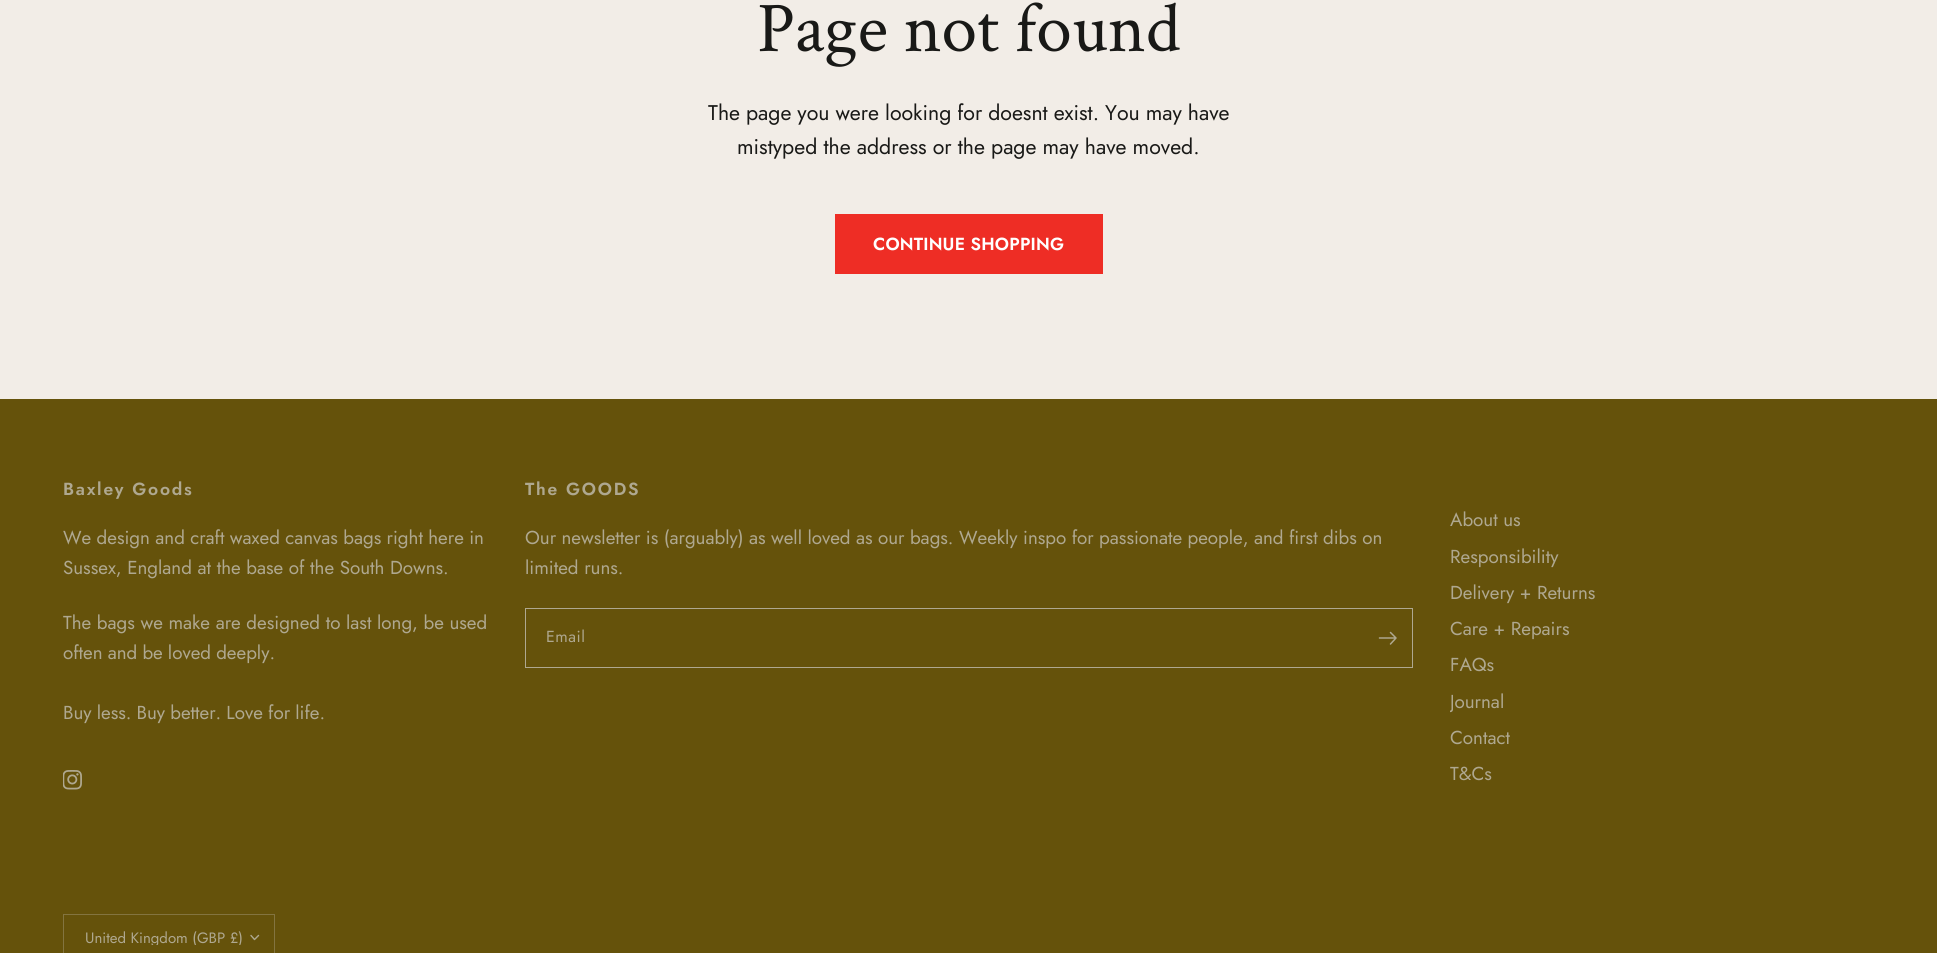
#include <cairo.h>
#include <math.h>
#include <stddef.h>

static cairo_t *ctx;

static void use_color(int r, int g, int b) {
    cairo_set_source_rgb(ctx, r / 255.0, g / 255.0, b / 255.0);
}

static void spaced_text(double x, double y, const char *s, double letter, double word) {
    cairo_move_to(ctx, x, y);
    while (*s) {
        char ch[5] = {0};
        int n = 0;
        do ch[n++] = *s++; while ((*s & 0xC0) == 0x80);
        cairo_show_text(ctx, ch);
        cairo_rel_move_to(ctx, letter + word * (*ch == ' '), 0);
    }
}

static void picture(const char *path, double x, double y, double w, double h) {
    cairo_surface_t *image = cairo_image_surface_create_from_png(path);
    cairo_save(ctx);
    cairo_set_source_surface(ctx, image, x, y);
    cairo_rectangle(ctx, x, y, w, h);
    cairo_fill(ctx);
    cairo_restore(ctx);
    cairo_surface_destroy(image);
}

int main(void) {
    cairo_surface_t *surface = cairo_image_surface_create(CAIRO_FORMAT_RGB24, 1937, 953);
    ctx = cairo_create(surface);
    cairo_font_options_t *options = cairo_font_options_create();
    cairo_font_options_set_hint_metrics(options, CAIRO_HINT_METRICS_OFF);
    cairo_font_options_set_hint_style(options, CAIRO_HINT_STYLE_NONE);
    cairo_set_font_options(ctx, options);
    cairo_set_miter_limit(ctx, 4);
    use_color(242, 237, 231);
    cairo_paint(ctx);
    cairo_select_font_face(ctx, "Crimson Text", CAIRO_FONT_SLANT_NORMAL, CAIRO_FONT_WEIGHT_NORMAL);
    cairo_set_font_size(ctx, 71.5);
    use_color(25, 25, 23);
    cairo_move_to(ctx, 757, 51);
    cairo_show_text(ctx, "Page not found");
    cairo_select_font_face(ctx, "Jost", CAIRO_FONT_SLANT_NORMAL, CAIRO_FONT_WEIGHT_NORMAL);
    cairo_set_font_size(ctx, 21.25);
    spaced_text(708, 120, "The page you were looking for doesnt exist. You may have", 0, -0.4);
    spaced_text(737, 154, "mistyped the address or the page may have moved.", 0, -0.25);
    use_color(238, 45, 37);
    cairo_rectangle(ctx, 835, 214, 268, 60);
    cairo_fill(ctx);
    cairo_select_font_face(ctx, "Jost SemiBold", CAIRO_FONT_SLANT_NORMAL, CAIRO_FONT_WEIGHT_NORMAL);
    cairo_set_font_size(ctx, 17.5);
    use_color(255, 255, 255);
    spaced_text(873, 250, "CONTINUE SHOPPING", 0.2, 0);
    use_color(101, 82, 11);
    cairo_rectangle(ctx, 0, 399, 1937, 554);
    cairo_fill(ctx);
    use_color(175, 168, 144);
    spaced_text(63, 495, "Baxley Goods", 1.75, 0);
    cairo_select_font_face(ctx, "Jost", CAIRO_FONT_SLANT_NORMAL, CAIRO_FONT_WEIGHT_NORMAL);
    cairo_set_font_size(ctx, 18.75);
    spaced_text(63, 544, "We design and craft waxed canvas bags right here in", 0, -0.25);
    cairo_move_to(ctx, 63, 574);
    cairo_show_text(ctx, "Sussex, England at the base of the South Downs.");
    cairo_move_to(ctx, 63, 629);
    cairo_show_text(ctx, "The bags we make are designed to last long, be used");
    spaced_text(63, 659, "often and be loved deeply.", 0, -0.5);
    spaced_text(63, 719, "Buy less. Buy better. Love for life.", 0, -0.5);
    picture("img1.png", 63, 770, 19, 20);
    cairo_select_font_face(ctx, "Jost SemiBold", CAIRO_FONT_SLANT_NORMAL, CAIRO_FONT_WEIGHT_NORMAL);
    cairo_set_font_size(ctx, 17.5);
    spaced_text(525, 495, "The GOODS", 1.75, 0);
    cairo_select_font_face(ctx, "Jost", CAIRO_FONT_SLANT_NORMAL, CAIRO_FONT_WEIGHT_NORMAL);
    cairo_set_font_size(ctx, 18.75);
    spaced_text(525, 544, "Our newsletter is (arguably) as well loved as our bags. Weekly inspo for passionate people, and first dibs on", 0, -0.2);
    cairo_move_to(ctx, 525, 574);
    cairo_show_text(ctx, "limited runs.");
    cairo_rectangle(ctx, 525.5, 608.5, 887, 59);
    cairo_set_line_width(ctx, 1);
    cairo_stroke(ctx);
    cairo_set_font_size(ctx, 16);
    spaced_text(546, 642, "Email", 0.5, 0);
    cairo_new_path(ctx);
    cairo_move_to(ctx, 1379.5, 638);
    cairo_line_to(ctx, 1394.5, 638);
    cairo_move_to(ctx, 1390.5, 632.5);
    cairo_line_to(ctx, 1396, 638);
    cairo_line_to(ctx, 1390.5, 644);
    cairo_set_line_width(ctx, 1.5);
    cairo_set_line_cap(ctx, CAIRO_LINE_CAP_ROUND);
    cairo_set_line_join(ctx, CAIRO_LINE_JOIN_ROUND);
    cairo_stroke(ctx);
    cairo_set_font_size(ctx, 18.75);
    cairo_move_to(ctx, 1450, 526);
    cairo_show_text(ctx, "About us");
    cairo_move_to(ctx, 1450, 563);
    cairo_show_text(ctx, "Responsibility");
    cairo_move_to(ctx, 1450, 599);
    cairo_show_text(ctx, "Delivery + Returns");
    cairo_move_to(ctx, 1450, 635);
    cairo_show_text(ctx, "Care + Repairs");
    cairo_move_to(ctx, 1450, 671);
    cairo_show_text(ctx, "FAQs");
    cairo_save(ctx);
    cairo_rectangle(ctx, 1450, 505, 425, 284);
    cairo_clip(ctx);
    cairo_move_to(ctx, 1450, 708);
    cairo_show_text(ctx, "Journal");
    cairo_restore(ctx);
    cairo_move_to(ctx, 1450, 744);
    cairo_show_text(ctx, "Contact");
    cairo_move_to(ctx, 1450, 780);
    cairo_show_text(ctx, "T&Cs");
    cairo_rectangle(ctx, 63.5, 914.5, 211, 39);
    use_color(131, 116, 64);
    cairo_set_line_width(ctx, 1);
    cairo_set_line_cap(ctx, CAIRO_LINE_CAP_BUTT);
    cairo_set_line_join(ctx, CAIRO_LINE_JOIN_MITER);
    cairo_stroke(ctx);
    cairo_save(ctx);
    cairo_rectangle(ctx, 85, 930, 159, 15);
    cairo_clip(ctx);
    cairo_set_font_size(ctx, 15);
    use_color(175, 168, 144);
    cairo_move_to(ctx, 85, 943);
    cairo_show_text(ctx, "United Kingdom (GBP £)");
    cairo_restore(ctx);
    cairo_new_path(ctx);
    cairo_move_to(ctx, 258.5, 935.5);
    cairo_line_to(ctx, 254.5, 939.5);
    cairo_line_to(ctx, 251, 935.5);
    use_color(175, 168, 144);
    cairo_set_line_width(ctx, 1.4);
    cairo_set_line_cap(ctx, CAIRO_LINE_CAP_ROUND);
    cairo_set_line_join(ctx, CAIRO_LINE_JOIN_ROUND);
    cairo_stroke(ctx);
    cairo_surface_write_to_png(surface, "result.png");
    cairo_font_options_destroy(options);
    cairo_destroy(ctx);
    cairo_surface_destroy(surface);
    return 0;
}
